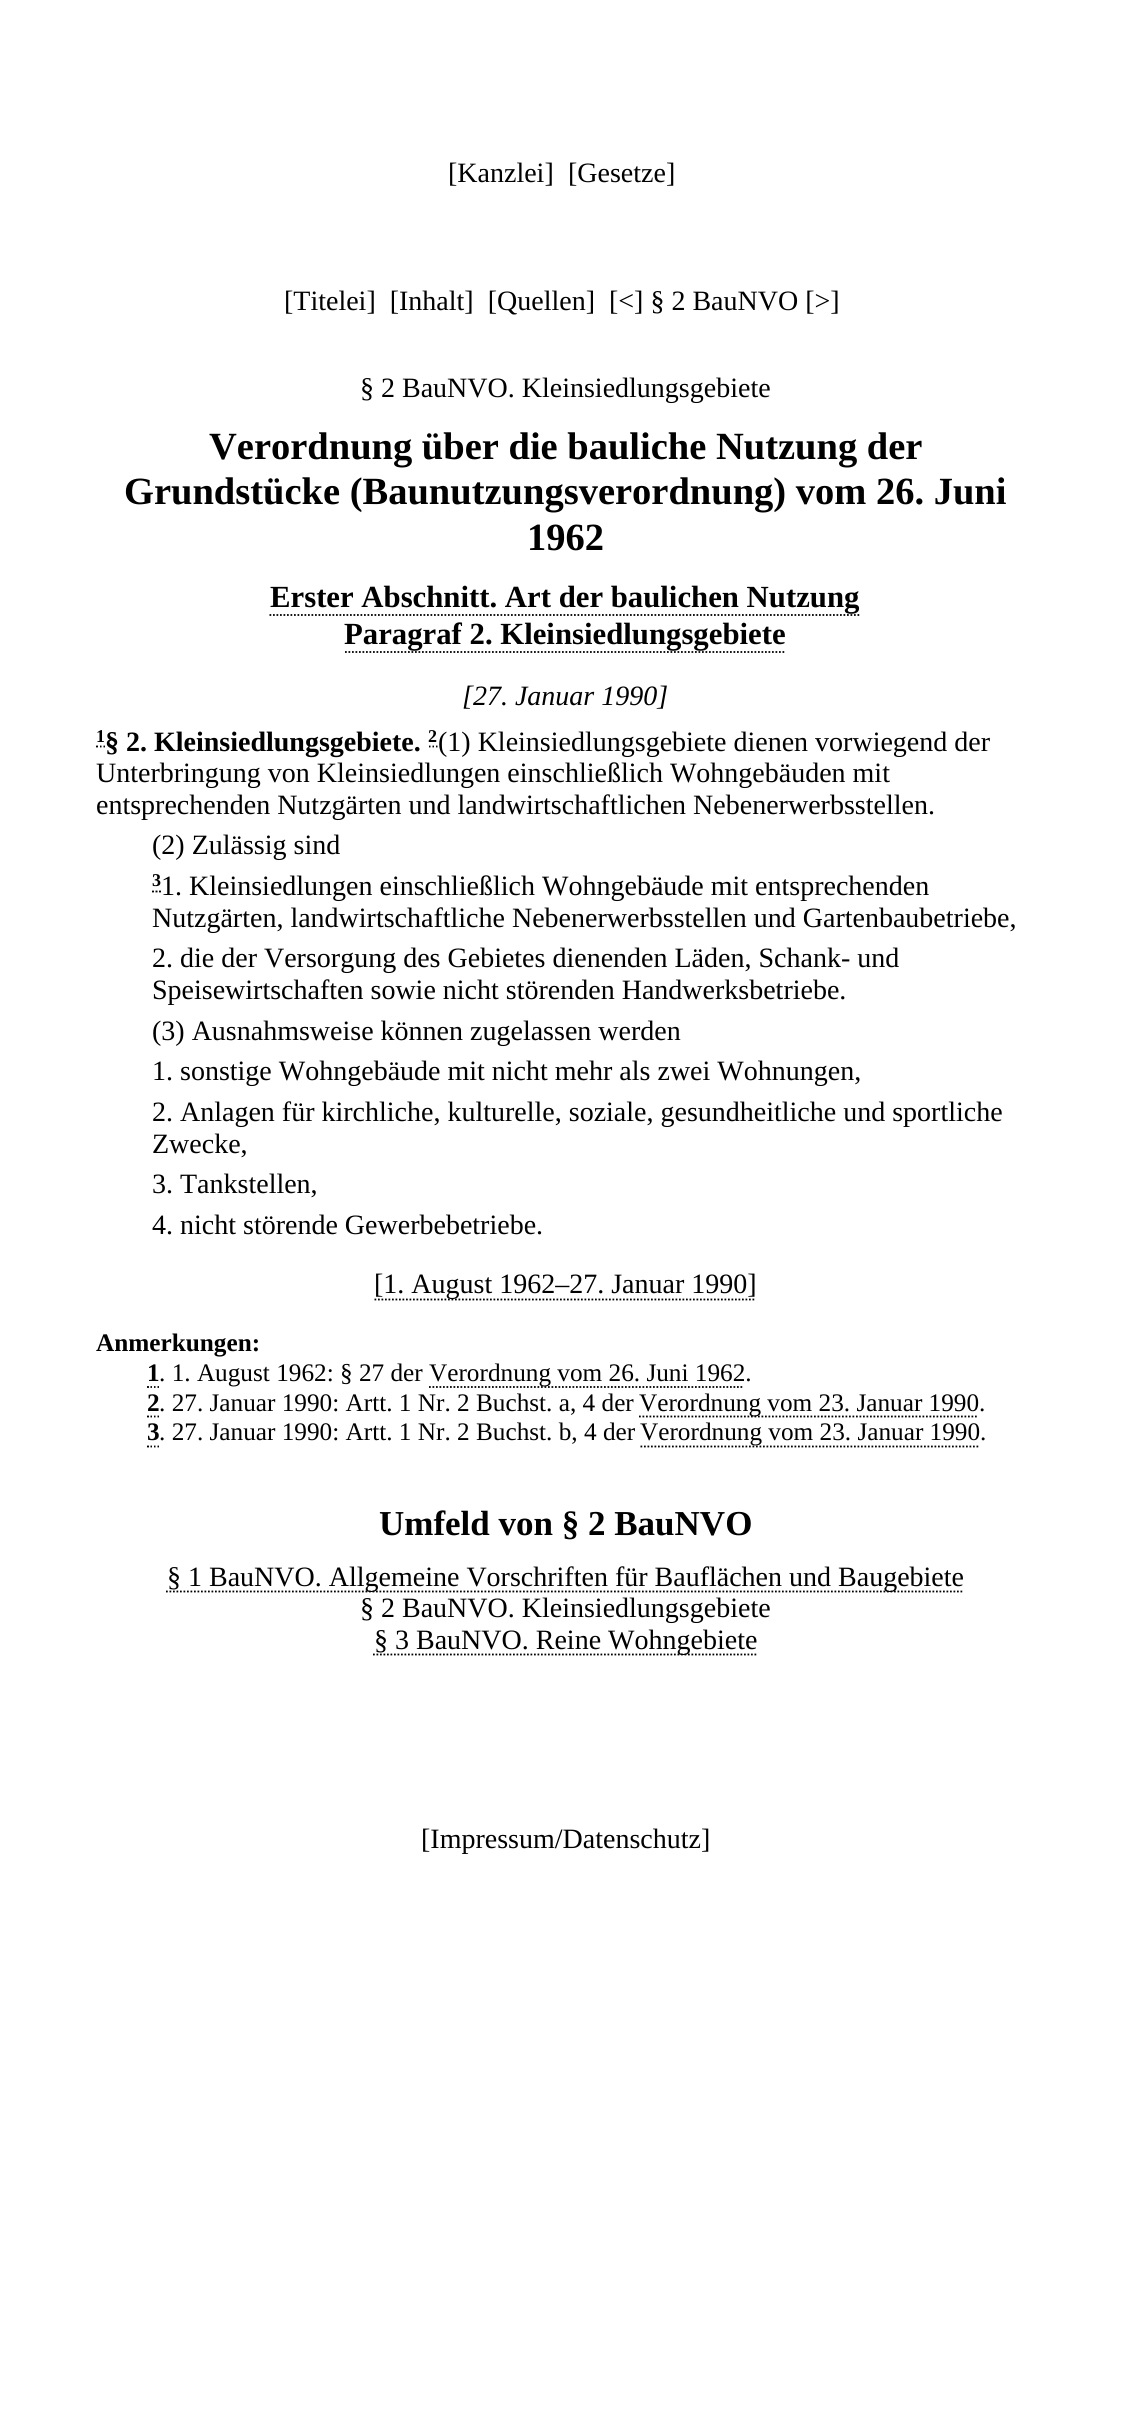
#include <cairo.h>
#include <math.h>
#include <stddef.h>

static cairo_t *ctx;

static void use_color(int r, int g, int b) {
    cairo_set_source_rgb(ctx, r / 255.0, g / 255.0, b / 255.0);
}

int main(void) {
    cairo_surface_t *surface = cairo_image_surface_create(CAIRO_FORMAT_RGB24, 1129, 2418);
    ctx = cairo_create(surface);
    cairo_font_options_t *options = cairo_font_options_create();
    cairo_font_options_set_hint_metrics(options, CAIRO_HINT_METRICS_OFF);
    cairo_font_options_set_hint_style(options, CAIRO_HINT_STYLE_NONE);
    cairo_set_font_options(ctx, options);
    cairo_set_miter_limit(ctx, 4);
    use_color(255, 255, 255);
    cairo_paint(ctx);
    cairo_select_font_face(ctx, "Liberation Serif", CAIRO_FONT_SLANT_NORMAL, CAIRO_FONT_WEIGHT_NORMAL);
    cairo_set_font_size(ctx, 28);
    use_color(0, 0, 0);
    cairo_move_to(ctx, 448, 182);
    cairo_show_text(ctx, "[Kanzlei]");
    cairo_move_to(ctx, 568, 182);
    cairo_show_text(ctx, "[Gesetze]");
    cairo_move_to(ctx, 284, 310);
    cairo_show_text(ctx, "[Titelei]  [Inhalt]  [Quellen]");
    cairo_move_to(ctx, 609, 310);
    cairo_show_text(ctx, "[<] § 2 BauNVO [>]");
    cairo_move_to(ctx, 360, 397);
    cairo_show_text(ctx, "§ 2 BauNVO. Kleinsiedlungsgebiete");
    cairo_select_font_face(ctx, "Liberation Serif", CAIRO_FONT_SLANT_NORMAL, CAIRO_FONT_WEIGHT_BOLD);
    cairo_set_font_size(ctx, 38.5);
    cairo_move_to(ctx, 209, 459);
    cairo_show_text(ctx, "Verordnung über die bauliche Nutzung der");
    cairo_move_to(ctx, 124, 504);
    cairo_show_text(ctx, "Grundstücke (Baunutzungsverordnung) vom 26. Juni");
    cairo_move_to(ctx, 527, 550);
    cairo_show_text(ctx, "1962");
    cairo_set_font_size(ctx, 30.75);
    cairo_move_to(ctx, 270, 607);
    cairo_show_text(ctx, "Erster Abschnitt. Art der baulichen Nutzung");
    cairo_new_path(ctx);
    cairo_move_to(ctx, 269.5, 615);
    cairo_line_to(ctx, 861, 615);
    cairo_set_line_width(ctx, 1.8);
    cairo_set_dash(ctx, (double[]){1.75, 1.75}, 2, 0);
    cairo_stroke(ctx);
    cairo_move_to(ctx, 344, 644);
    cairo_show_text(ctx, "Paragraf 2. Kleinsiedlungsgebiete");
    cairo_new_path(ctx);
    cairo_move_to(ctx, 345, 652);
    cairo_line_to(ctx, 786, 652);
    cairo_stroke(ctx);
    cairo_select_font_face(ctx, "Liberation Serif", CAIRO_FONT_SLANT_ITALIC, CAIRO_FONT_WEIGHT_NORMAL);
    cairo_set_font_size(ctx, 28);
    cairo_move_to(ctx, 462, 705);
    cairo_show_text(ctx, "[27. Januar 1990]");
    cairo_select_font_face(ctx, "Liberation Serif", CAIRO_FONT_SLANT_NORMAL, CAIRO_FONT_WEIGHT_BOLD);
    cairo_set_font_size(ctx, 18);
    cairo_move_to(ctx, 428, 742);
    cairo_show_text(ctx, "2");
    cairo_select_font_face(ctx, "Liberation Serif", CAIRO_FONT_SLANT_NORMAL, CAIRO_FONT_WEIGHT_NORMAL);
    cairo_set_font_size(ctx, 28);
    cairo_move_to(ctx, 438, 751);
    cairo_show_text(ctx, "(1) Kleinsiedlungsgebiete dienen vorwiegend der");
    cairo_new_path(ctx);
    cairo_move_to(ctx, 429, 746.5);
    cairo_line_to(ctx, 430.5, 746.5);
    cairo_move_to(ctx, 432.5, 746.5);
    cairo_line_to(ctx, 434, 746.5);
    cairo_move_to(ctx, 436, 746.5);
    cairo_line_to(ctx, 437.5, 746.5);
    cairo_set_dash(ctx, NULL, 0, 0);
    cairo_stroke(ctx);
    cairo_move_to(ctx, 96, 782);
    cairo_show_text(ctx, "Unterbringung von Kleinsiedlungen einschließlich Wohngebäuden mit");
    cairo_move_to(ctx, 96, 814);
    cairo_show_text(ctx, "entsprechenden Nutzgärten und landwirtschaftlichen Nebenerwerbsstellen.");
    cairo_move_to(ctx, 152, 854);
    cairo_show_text(ctx, "(2) Zulässig sind");
    cairo_select_font_face(ctx, "Liberation Serif", CAIRO_FONT_SLANT_NORMAL, CAIRO_FONT_WEIGHT_BOLD);
    cairo_set_font_size(ctx, 18);
    cairo_move_to(ctx, 152, 886);
    cairo_show_text(ctx, "3");
    cairo_select_font_face(ctx, "Liberation Serif", CAIRO_FONT_SLANT_NORMAL, CAIRO_FONT_WEIGHT_NORMAL);
    cairo_set_font_size(ctx, 28);
    cairo_move_to(ctx, 161, 895);
    cairo_show_text(ctx, "1. Kleinsiedlungen einschließlich Wohngebäude mit entsprechenden");
    cairo_new_path(ctx);
    cairo_move_to(ctx, 152, 891.5);
    cairo_line_to(ctx, 154, 891.5);
    cairo_move_to(ctx, 155.5, 891.5);
    cairo_line_to(ctx, 157.5, 891.5);
    cairo_move_to(ctx, 159, 891.5);
    cairo_line_to(ctx, 161, 891.5);
    cairo_stroke(ctx);
    cairo_move_to(ctx, 152, 927);
    cairo_show_text(ctx, "Nutzgärten, landwirtschaftliche Nebenerwerbsstellen und Gartenbaubetriebe,");
    cairo_move_to(ctx, 152, 967);
    cairo_show_text(ctx, "2. die der Versorgung des Gebietes dienenden Läden, Schank- und");
    cairo_move_to(ctx, 152, 999);
    cairo_show_text(ctx, "Speisewirtschaften sowie nicht störenden Handwerksbetriebe.");
    cairo_move_to(ctx, 152, 1040);
    cairo_show_text(ctx, "(3) Ausnahmsweise können zugelassen werden");
    cairo_move_to(ctx, 152, 1080);
    cairo_show_text(ctx, "1. sonstige Wohngebäude mit nicht mehr als zwei Wohnungen,");
    cairo_move_to(ctx, 152, 1121);
    cairo_show_text(ctx, "2. Anlagen für kirchliche, kulturelle, soziale, gesundheitliche und sportliche");
    cairo_move_to(ctx, 152, 1153);
    cairo_show_text(ctx, "Zwecke,");
    cairo_move_to(ctx, 152, 1193);
    cairo_show_text(ctx, "3. Tankstellen,");
    cairo_move_to(ctx, 152, 1234);
    cairo_show_text(ctx, "4. nicht störende Gewerbebetriebe.");
    cairo_select_font_face(ctx, "Liberation Serif", CAIRO_FONT_SLANT_NORMAL, CAIRO_FONT_WEIGHT_BOLD);
    cairo_set_font_size(ctx, 18);
    cairo_move_to(ctx, 96, 742);
    cairo_show_text(ctx, "1");
    cairo_new_path(ctx);
    cairo_move_to(ctx, 96, 746.5);
    cairo_line_to(ctx, 98, 746.5);
    cairo_move_to(ctx, 100, 746.5);
    cairo_line_to(ctx, 101.5, 746.5);
    cairo_move_to(ctx, 103.5, 746.5);
    cairo_line_to(ctx, 105, 746.5);
    cairo_stroke(ctx);
    cairo_set_font_size(ctx, 28);
    cairo_move_to(ctx, 105, 751);
    cairo_show_text(ctx, "§ 2. Kleinsiedlungsgebiete.");
    cairo_new_path(ctx);
    cairo_move_to(ctx, 374.5, 1299.5);
    cairo_line_to(ctx, 756, 1299.5);
    cairo_set_dash(ctx, (double[]){1.75, 1.75}, 2, 0);
    cairo_stroke(ctx);
    cairo_select_font_face(ctx, "Liberation Serif", CAIRO_FONT_SLANT_NORMAL, CAIRO_FONT_WEIGHT_NORMAL);
    cairo_move_to(ctx, 374, 1293);
    cairo_show_text(ctx, "[1. August 1962–27. Januar 1990]");
    cairo_select_font_face(ctx, "Liberation Serif", CAIRO_FONT_SLANT_NORMAL, CAIRO_FONT_WEIGHT_BOLD);
    cairo_set_font_size(ctx, 25.25);
    cairo_move_to(ctx, 96, 1351);
    cairo_show_text(ctx, "Anmerkungen:");
    cairo_move_to(ctx, 147, 1381);
    cairo_show_text(ctx, "1");
    cairo_new_path(ctx);
    cairo_move_to(ctx, 147, 1387);
    cairo_line_to(ctx, 149, 1387);
    cairo_move_to(ctx, 150.5, 1387);
    cairo_line_to(ctx, 152, 1387);
    cairo_move_to(ctx, 154, 1387);
    cairo_line_to(ctx, 155.5, 1387);
    cairo_move_to(ctx, 157.5, 1387);
    cairo_line_to(ctx, 159, 1387);
    cairo_set_dash(ctx, NULL, 0, 0);
    cairo_stroke(ctx);
    cairo_select_font_face(ctx, "Liberation Serif", CAIRO_FONT_SLANT_NORMAL, CAIRO_FONT_WEIGHT_NORMAL);
    cairo_move_to(ctx, 159, 1381);
    cairo_show_text(ctx, ". 1. August 1962: § 27 der");
    cairo_new_path(ctx);
    cairo_move_to(ctx, 429, 1387);
    cairo_line_to(ctx, 744, 1387);
    cairo_set_dash(ctx, (double[]){1.75, 1.75}, 2, 0);
    cairo_stroke(ctx);
    cairo_move_to(ctx, 429, 1381);
    cairo_show_text(ctx, "Verordnung vom 26. Juni 1962.");
    cairo_select_font_face(ctx, "Liberation Serif", CAIRO_FONT_SLANT_NORMAL, CAIRO_FONT_WEIGHT_BOLD);
    cairo_move_to(ctx, 147, 1411);
    cairo_show_text(ctx, "2");
    cairo_new_path(ctx);
    cairo_move_to(ctx, 147, 1416.5);
    cairo_line_to(ctx, 149, 1416.5);
    cairo_move_to(ctx, 150.5, 1416.5);
    cairo_line_to(ctx, 152, 1416.5);
    cairo_move_to(ctx, 154, 1416.5);
    cairo_line_to(ctx, 155.5, 1416.5);
    cairo_move_to(ctx, 157.5, 1416.5);
    cairo_line_to(ctx, 159, 1416.5);
    cairo_set_dash(ctx, NULL, 0, 0);
    cairo_stroke(ctx);
    cairo_select_font_face(ctx, "Liberation Serif", CAIRO_FONT_SLANT_NORMAL, CAIRO_FONT_WEIGHT_NORMAL);
    cairo_move_to(ctx, 159, 1411);
    cairo_show_text(ctx, ". 27. Januar 1990: Artt. 1 Nr. 2 Buchst. a, 4 der");
    cairo_new_path(ctx);
    cairo_move_to(ctx, 639, 1416.5);
    cairo_line_to(ctx, 978, 1416.5);
    cairo_set_dash(ctx, (double[]){1.75, 1.75}, 2, 0);
    cairo_stroke(ctx);
    cairo_move_to(ctx, 639, 1411);
    cairo_show_text(ctx, "Verordnung vom 23. Januar 1990.");
    cairo_select_font_face(ctx, "Liberation Serif", CAIRO_FONT_SLANT_NORMAL, CAIRO_FONT_WEIGHT_BOLD);
    cairo_move_to(ctx, 147, 1440);
    cairo_show_text(ctx, "3");
    cairo_new_path(ctx);
    cairo_move_to(ctx, 147, 1446.5);
    cairo_line_to(ctx, 149, 1446.5);
    cairo_move_to(ctx, 150.5, 1446.5);
    cairo_line_to(ctx, 152, 1446.5);
    cairo_move_to(ctx, 154, 1446.5);
    cairo_line_to(ctx, 155.5, 1446.5);
    cairo_move_to(ctx, 157.5, 1446.5);
    cairo_line_to(ctx, 159, 1446.5);
    cairo_set_dash(ctx, NULL, 0, 0);
    cairo_stroke(ctx);
    cairo_select_font_face(ctx, "Liberation Serif", CAIRO_FONT_SLANT_NORMAL, CAIRO_FONT_WEIGHT_NORMAL);
    cairo_move_to(ctx, 159, 1440);
    cairo_show_text(ctx, ". 27. Januar 1990: Artt. 1 Nr. 2 Buchst. b, 4 der");
    cairo_new_path(ctx);
    cairo_move_to(ctx, 640.5, 1446.5);
    cairo_line_to(ctx, 980, 1446.5);
    cairo_set_dash(ctx, (double[]){1.75, 1.75}, 2, 0);
    cairo_stroke(ctx);
    cairo_move_to(ctx, 640, 1440);
    cairo_show_text(ctx, "Verordnung vom 23. Januar 1990.");
    cairo_select_font_face(ctx, "Liberation Serif", CAIRO_FONT_SLANT_NORMAL, CAIRO_FONT_WEIGHT_BOLD);
    cairo_set_font_size(ctx, 35);
    cairo_move_to(ctx, 379, 1535);
    cairo_show_text(ctx, "Umfeld von § 2 BauNVO");
    cairo_new_path(ctx);
    cairo_move_to(ctx, 166, 1591.5);
    cairo_line_to(ctx, 964, 1591.5);
    cairo_stroke(ctx);
    cairo_select_font_face(ctx, "Liberation Serif", CAIRO_FONT_SLANT_NORMAL, CAIRO_FONT_WEIGHT_NORMAL);
    cairo_set_font_size(ctx, 28);
    cairo_move_to(ctx, 167, 1586);
    cairo_show_text(ctx, "§ 1 BauNVO. Allgemeine Vorschriften für Bauflächen und Baugebiete");
    cairo_move_to(ctx, 360, 1617);
    cairo_show_text(ctx, "§ 2 BauNVO. Kleinsiedlungsgebiete");
    cairo_new_path(ctx);
    cairo_move_to(ctx, 373, 1654.5);
    cairo_line_to(ctx, 758, 1654.5);
    cairo_stroke(ctx);
    cairo_move_to(ctx, 374, 1649);
    cairo_show_text(ctx, "§ 3 BauNVO. Reine Wohngebiete");
    cairo_move_to(ctx, 421, 1848);
    cairo_show_text(ctx, "[Impressum/Datenschutz]");
    cairo_surface_write_to_png(surface, "result.png");
    cairo_font_options_destroy(options);
    cairo_destroy(ctx);
    cairo_surface_destroy(surface);
    return 0;
}
